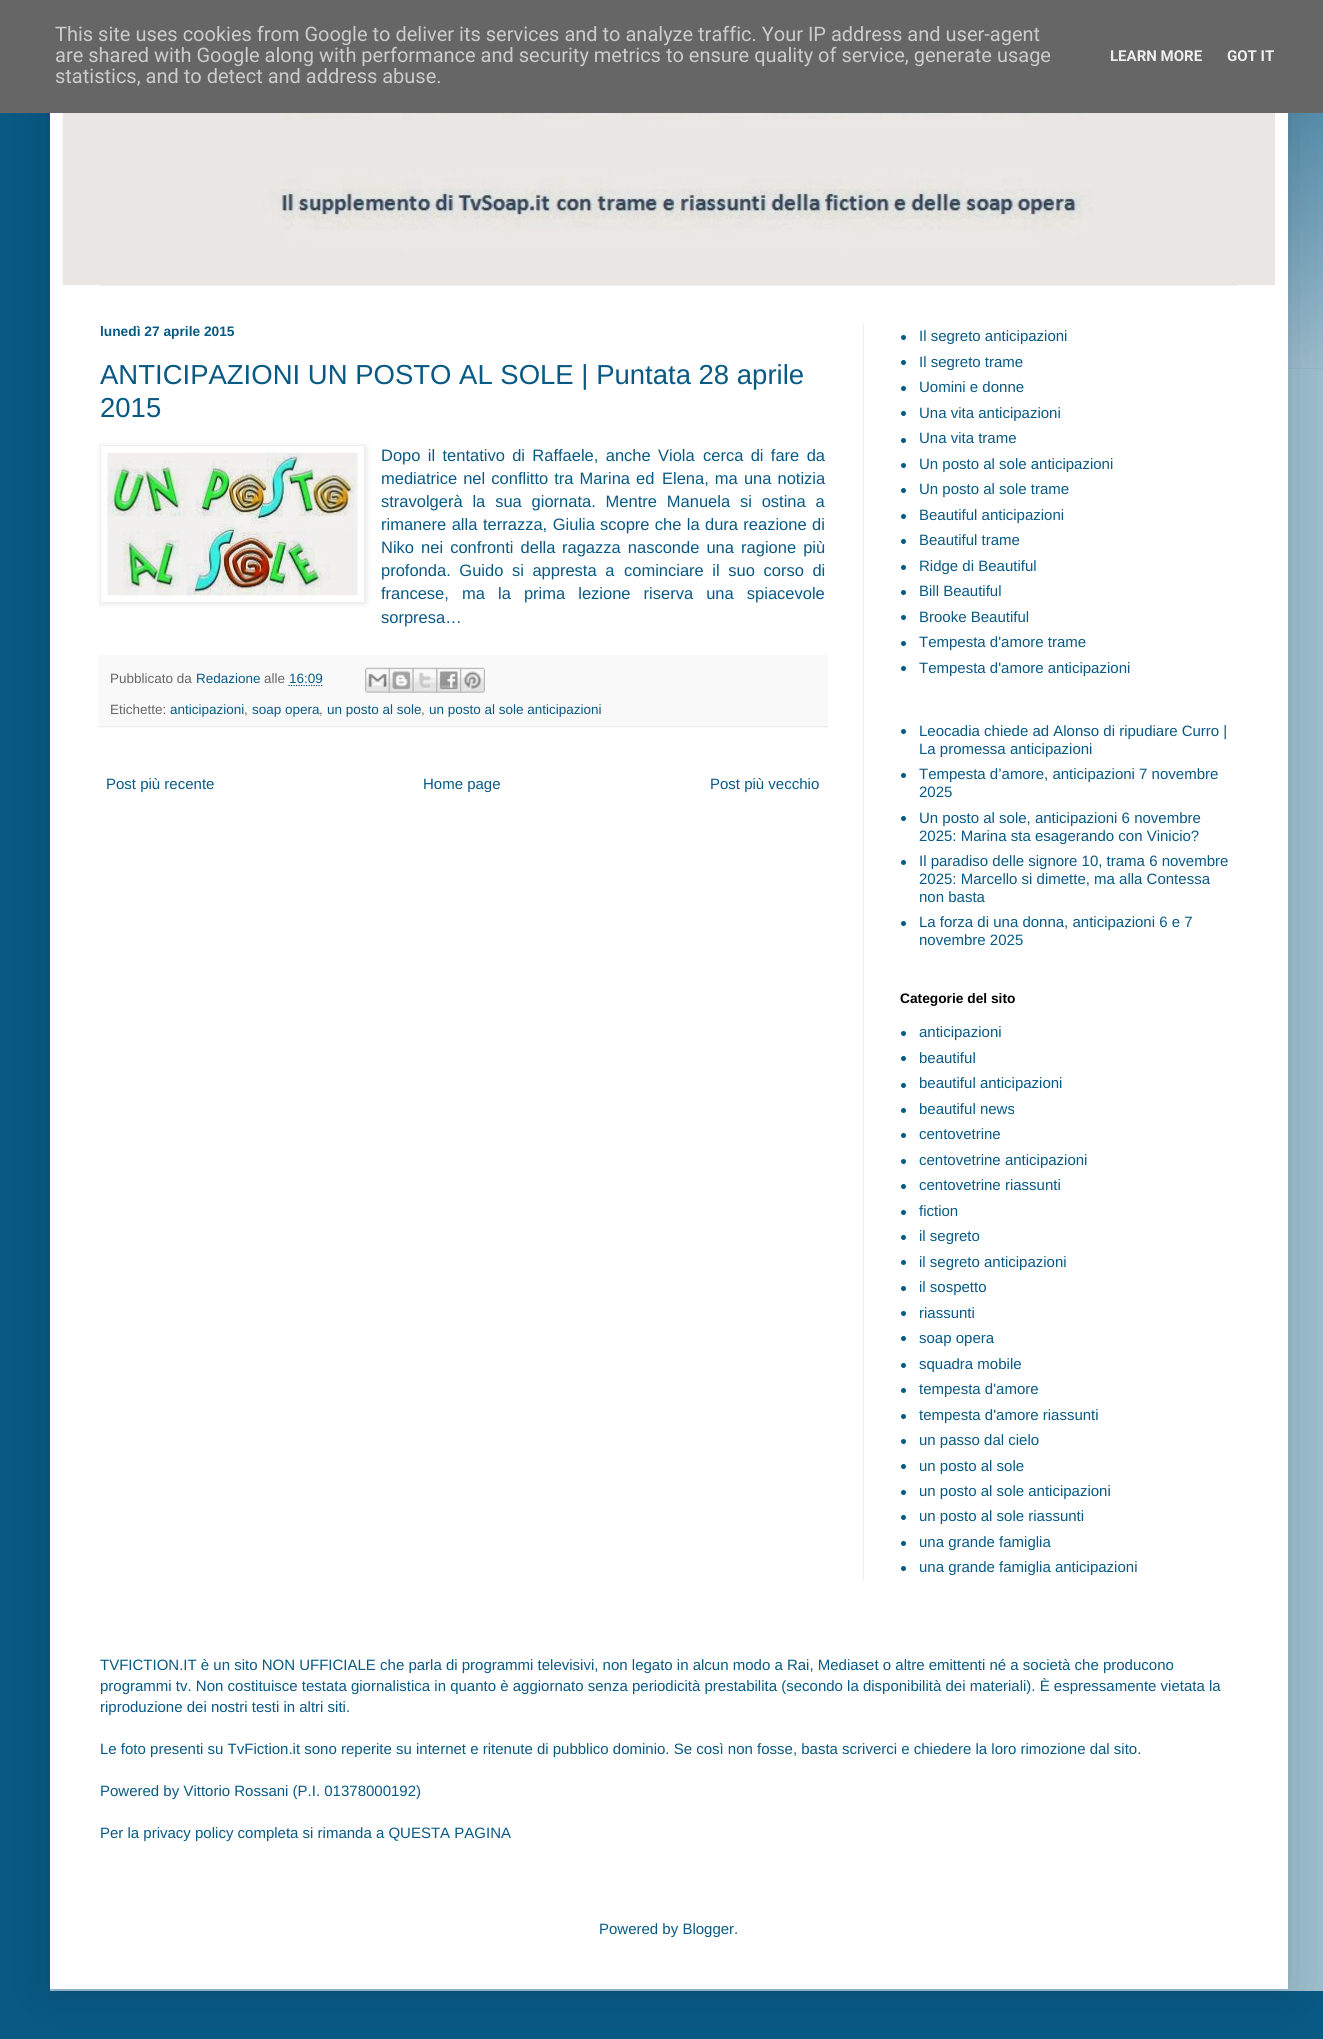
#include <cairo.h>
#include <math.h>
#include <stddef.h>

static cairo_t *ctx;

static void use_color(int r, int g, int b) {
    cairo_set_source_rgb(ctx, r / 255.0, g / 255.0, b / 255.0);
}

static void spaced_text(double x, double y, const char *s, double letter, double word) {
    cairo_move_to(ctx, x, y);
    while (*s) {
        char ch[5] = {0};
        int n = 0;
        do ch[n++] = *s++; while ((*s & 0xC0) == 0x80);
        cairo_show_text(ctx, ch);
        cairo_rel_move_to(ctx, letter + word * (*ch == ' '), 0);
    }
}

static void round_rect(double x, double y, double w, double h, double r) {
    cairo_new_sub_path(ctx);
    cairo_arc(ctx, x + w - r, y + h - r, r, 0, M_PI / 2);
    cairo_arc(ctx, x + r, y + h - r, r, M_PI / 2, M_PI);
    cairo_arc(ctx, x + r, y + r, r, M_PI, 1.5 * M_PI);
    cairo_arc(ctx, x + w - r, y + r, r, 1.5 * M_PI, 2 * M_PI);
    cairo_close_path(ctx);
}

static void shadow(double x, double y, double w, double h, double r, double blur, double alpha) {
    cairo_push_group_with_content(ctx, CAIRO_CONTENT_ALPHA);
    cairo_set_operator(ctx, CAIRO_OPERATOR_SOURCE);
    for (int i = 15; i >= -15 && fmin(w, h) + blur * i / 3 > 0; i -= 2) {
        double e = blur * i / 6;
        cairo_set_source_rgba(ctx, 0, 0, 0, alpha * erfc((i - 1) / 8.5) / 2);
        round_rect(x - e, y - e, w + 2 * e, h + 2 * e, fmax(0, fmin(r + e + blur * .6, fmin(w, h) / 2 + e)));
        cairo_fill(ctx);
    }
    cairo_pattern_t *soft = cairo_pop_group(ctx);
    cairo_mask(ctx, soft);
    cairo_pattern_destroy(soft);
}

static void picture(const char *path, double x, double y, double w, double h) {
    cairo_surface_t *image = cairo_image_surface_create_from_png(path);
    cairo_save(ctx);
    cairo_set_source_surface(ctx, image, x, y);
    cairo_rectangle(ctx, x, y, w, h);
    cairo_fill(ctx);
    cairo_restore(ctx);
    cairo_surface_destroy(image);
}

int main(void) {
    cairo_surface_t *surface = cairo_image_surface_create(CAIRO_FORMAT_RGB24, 1323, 2039);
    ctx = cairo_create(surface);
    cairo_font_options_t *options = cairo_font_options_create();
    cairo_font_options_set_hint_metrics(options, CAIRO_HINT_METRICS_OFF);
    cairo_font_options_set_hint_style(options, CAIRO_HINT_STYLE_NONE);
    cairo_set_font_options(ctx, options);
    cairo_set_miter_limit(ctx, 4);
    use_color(8, 89, 132);
    cairo_paint(ctx);
    picture("img1.png", 1288, 113, 35, 256);
    use_color(156, 190, 205);
    cairo_rectangle(ctx, 50, 369, 1273, 1622);
    cairo_fill(ctx);
    use_color(0, 0, 0);
    shadow(50, -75, 1238, 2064, 0, 25, 0.15);
    use_color(102, 102, 102);
    cairo_rectangle(ctx, 0, 0, 1323, 113);
    cairo_fill(ctx);
    cairo_select_font_face(ctx, "Roboto", CAIRO_FONT_SLANT_NORMAL, CAIRO_FONT_WEIGHT_NORMAL);
    cairo_set_font_size(ctx, 20);
    use_color(204, 204, 204);
    cairo_move_to(ctx, 55, 41);
    cairo_show_text(ctx, "This site uses cookies from Google to deliver its services and to analyze traffic. Your IP address and user-agent");
    cairo_move_to(ctx, 55, 62);
    cairo_show_text(ctx, "are shared with Google along with performance and security metrics to ensure quality of service, generate usage");
    cairo_move_to(ctx, 55, 83);
    cairo_show_text(ctx, "statistics, and to detect and address abuse.");
    cairo_select_font_face(ctx, "Roboto", CAIRO_FONT_SLANT_NORMAL, CAIRO_FONT_WEIGHT_BOLD);
    cairo_set_font_size(ctx, 15);
    use_color(238, 238, 238);
    cairo_move_to(ctx, 1110, 61);
    cairo_show_text(ctx, "LEARN MORE");
    cairo_move_to(ctx, 1227, 61);
    cairo_show_text(ctx, "GOT IT");
    use_color(255, 255, 255);
    cairo_rectangle(ctx, 50, 113, 1238, 1876);
    cairo_fill(ctx);
    picture("img2.png", 62, 113, 1213, 172);
    use_color(238, 238, 238);
    cairo_rectangle(ctx, 100, 285, 1138, 1);
    cairo_fill(ctx);
    cairo_rectangle(ctx, 863, 324, 1, 1256);
    cairo_fill(ctx);
    cairo_select_font_face(ctx, "Liberation Sans", CAIRO_FONT_SLANT_NORMAL, CAIRO_FONT_WEIGHT_BOLD);
    cairo_set_font_size(ctx, 13.75);
    use_color(8, 89, 132);
    cairo_move_to(ctx, 100, 336);
    cairo_show_text(ctx, "lunedì 27 aprile 2015");
    cairo_select_font_face(ctx, "Liberation Sans", CAIRO_FONT_SLANT_NORMAL, CAIRO_FONT_WEIGHT_NORMAL);
    cairo_set_font_size(ctx, 27.5);
    cairo_move_to(ctx, 100, 384);
    cairo_show_text(ctx, "ANTICIPAZIONI UN POSTO AL SOLE | Puntata 28 aprile");
    cairo_move_to(ctx, 100, 417);
    cairo_show_text(ctx, "2015");
    use_color(0, 0, 0);
    shadow(101, 446, 265, 158, 0, 3, 0.1);
    use_color(255, 255, 255);
    cairo_rectangle(ctx, 100.5, 445.5, 264, 157);
    cairo_fill_preserve(ctx);
    use_color(238, 238, 238);
    cairo_set_line_width(ctx, 1);
    cairo_stroke(ctx);
    picture("img3.png", 107, 452, 251, 144);
    cairo_set_font_size(ctx, 16.5);
    use_color(8, 89, 132);
    spaced_text(381, 461, "Dopo il tentativo di Raffaele, anche Viola", 0, 2.75);
    spaced_text(703, 461, "cerca di fare da", 0, 2.75);
    spaced_text(381, 484, "mediatrice nel conflitto tra Marina ed", 0, 1.5);
    spaced_text(662, 484, "Elena, ma una notizia", 0, 1.5);
    spaced_text(381, 507, "stravolgerà la sua giornata. Mentre Manuela si ostina a", 0, 5.25);
    spaced_text(381, 530, "rimanere alla terrazza, Giulia", 0, 1);
    spaced_text(600, 530, "scopre che la dura reazione di", 0, 0.75);
    spaced_text(381, 553, "Niko nei confronti della", 0, 2.5);
    spaced_text(562, 553, "ragazza nasconde una ragione più", 0, 2.5);
    spaced_text(381, 576, "profonda. Guido si appresta a", 0, 4);
    spaced_text(624, 576, "cominciare il suo corso di", 0, 4);
    spaced_text(381, 599, "francese, ma la prima lezione riserva una spiacevole", 0, 8.5);
    cairo_move_to(ctx, 381, 623);
    cairo_show_text(ctx, "sorpresa…");
    use_color(249, 249, 249);
    cairo_rectangle(ctx, 98, 655, 730, 73);
    cairo_fill(ctx);
    use_color(238, 238, 238);
    cairo_rectangle(ctx, 98, 726, 730, 1);
    cairo_fill(ctx);
    cairo_set_font_size(ctx, 13.5);
    use_color(102, 102, 102);
    cairo_move_to(ctx, 110, 683);
    cairo_show_text(ctx, "Pubblicato da");
    use_color(8, 89, 132);
    cairo_move_to(ctx, 196, 683);
    cairo_show_text(ctx, "Redazione");
    use_color(102, 102, 102);
    cairo_move_to(ctx, 264, 683);
    cairo_show_text(ctx, "alle");
    use_color(8, 89, 132);
    cairo_move_to(ctx, 289, 683);
    cairo_show_text(ctx, "16:09");
    cairo_new_path(ctx);
    cairo_move_to(ctx, 288.5, 685.5);
    cairo_line_to(ctx, 322.5, 685.5);
    cairo_set_line_width(ctx, 1.2);
    cairo_set_dash(ctx, (double[]){1.25, 1.25}, 2, 0);
    cairo_stroke(ctx);
    picture("img4.png", 365, 667, 25, 26);
    picture("img5.png", 388, 667, 26, 26);
    picture("img6.png", 412, 667, 26, 26);
    picture("img7.png", 436, 667, 26, 26);
    picture("img8.png", 460, 667, 25, 26);
    use_color(102, 102, 102);
    cairo_move_to(ctx, 110, 714);
    cairo_show_text(ctx, "Etichette:");
    use_color(8, 89, 132);
    cairo_move_to(ctx, 170, 714);
    cairo_show_text(ctx, "anticipazioni");
    use_color(102, 102, 102);
    cairo_move_to(ctx, 244, 714);
    cairo_show_text(ctx, ",");
    use_color(8, 89, 132);
    cairo_move_to(ctx, 252, 714);
    cairo_show_text(ctx, "soap opera");
    use_color(102, 102, 102);
    cairo_move_to(ctx, 319, 714);
    cairo_show_text(ctx, ",");
    use_color(8, 89, 132);
    cairo_move_to(ctx, 327, 714);
    cairo_show_text(ctx, "un posto al sole");
    use_color(102, 102, 102);
    cairo_move_to(ctx, 421, 714);
    cairo_show_text(ctx, ",");
    use_color(8, 89, 132);
    cairo_move_to(ctx, 429, 714);
    cairo_show_text(ctx, "un posto al sole anticipazioni");
    cairo_set_font_size(ctx, 15);
    cairo_move_to(ctx, 106, 789);
    cairo_show_text(ctx, "Post più recente");
    cairo_move_to(ctx, 423, 789);
    cairo_show_text(ctx, "Home page");
    cairo_move_to(ctx, 710, 789);
    cairo_show_text(ctx, "Post più vecchio");
    cairo_new_path(ctx);
    cairo_arc(ctx, 903.5, 337.5, 2.5, 0, 2 * M_PI);
    cairo_fill(ctx);
    cairo_move_to(ctx, 919, 341);
    cairo_show_text(ctx, "Il segreto anticipazioni");
    cairo_new_path(ctx);
    cairo_arc(ctx, 903.5, 362.5, 2.5, 0, 2 * M_PI);
    cairo_fill(ctx);
    cairo_move_to(ctx, 919, 367);
    cairo_show_text(ctx, "Il segreto trame");
    cairo_new_path(ctx);
    cairo_arc(ctx, 903.5, 388.5, 2.5, 0, 2 * M_PI);
    cairo_fill(ctx);
    cairo_move_to(ctx, 919, 392);
    cairo_show_text(ctx, "Uomini e donne");
    cairo_new_path(ctx);
    cairo_arc(ctx, 903.5, 413.5, 2.5, 0, 2 * M_PI);
    cairo_fill(ctx);
    cairo_move_to(ctx, 919, 418);
    cairo_show_text(ctx, "Una vita anticipazioni");
    cairo_new_path(ctx);
    cairo_arc(ctx, 903.5, 440.5, 2.5, 0, 2 * M_PI);
    cairo_fill(ctx);
    cairo_move_to(ctx, 919, 443);
    cairo_show_text(ctx, "Una vita trame");
    cairo_new_path(ctx);
    cairo_arc(ctx, 903.5, 465.5, 2.5, 0, 2 * M_PI);
    cairo_fill(ctx);
    cairo_move_to(ctx, 919, 469);
    cairo_show_text(ctx, "Un posto al sole anticipazioni");
    cairo_new_path(ctx);
    cairo_arc(ctx, 903.5, 490.5, 2.5, 0, 2 * M_PI);
    cairo_fill(ctx);
    cairo_move_to(ctx, 919, 494);
    cairo_show_text(ctx, "Un posto al sole trame");
    cairo_new_path(ctx);
    cairo_arc(ctx, 903.5, 516.5, 2.5, 0, 2 * M_PI);
    cairo_fill(ctx);
    cairo_move_to(ctx, 919, 520);
    cairo_show_text(ctx, "Beautiful anticipazioni");
    cairo_new_path(ctx);
    cairo_arc(ctx, 903.5, 541.5, 2.5, 0, 2 * M_PI);
    cairo_fill(ctx);
    cairo_move_to(ctx, 919, 545);
    cairo_show_text(ctx, "Beautiful trame");
    cairo_new_path(ctx);
    cairo_arc(ctx, 903.5, 567.5, 2.5, 0, 2 * M_PI);
    cairo_fill(ctx);
    cairo_move_to(ctx, 919, 571);
    cairo_show_text(ctx, "Ridge di Beautiful");
    cairo_new_path(ctx);
    cairo_arc(ctx, 903.5, 592.5, 2.5, 0, 2 * M_PI);
    cairo_fill(ctx);
    cairo_move_to(ctx, 919, 596);
    cairo_show_text(ctx, "Bill Beautiful");
    cairo_new_path(ctx);
    cairo_arc(ctx, 903.5, 617.5, 2.5, 0, 2 * M_PI);
    cairo_fill(ctx);
    cairo_move_to(ctx, 919, 622);
    cairo_show_text(ctx, "Brooke Beautiful");
    cairo_new_path(ctx);
    cairo_arc(ctx, 903.5, 643.5, 2.5, 0, 2 * M_PI);
    cairo_fill(ctx);
    cairo_move_to(ctx, 919, 647);
    cairo_show_text(ctx, "Tempesta d'amore trame");
    cairo_new_path(ctx);
    cairo_arc(ctx, 903.5, 668.5, 2.5, 0, 2 * M_PI);
    cairo_fill(ctx);
    cairo_move_to(ctx, 919, 673);
    cairo_show_text(ctx, "Tempesta d'amore anticipazioni");
    cairo_new_path(ctx);
    cairo_arc(ctx, 903.5, 731.5, 2.5, 0, 2 * M_PI);
    cairo_fill(ctx);
    cairo_move_to(ctx, 919, 736);
    cairo_show_text(ctx, "Leocadia chiede ad Alonso di ripudiare Curro |");
    cairo_move_to(ctx, 919, 754);
    cairo_show_text(ctx, "La promessa anticipazioni");
    cairo_new_path(ctx);
    cairo_arc(ctx, 903.5, 775.5, 2.5, 0, 2 * M_PI);
    cairo_fill(ctx);
    cairo_move_to(ctx, 919, 779);
    cairo_show_text(ctx, "Tempesta d’amore, anticipazioni 7 novembre");
    cairo_move_to(ctx, 919, 797);
    cairo_show_text(ctx, "2025");
    cairo_new_path(ctx);
    cairo_arc(ctx, 903.5, 818.5, 2.5, 0, 2 * M_PI);
    cairo_fill(ctx);
    cairo_move_to(ctx, 919, 823);
    cairo_show_text(ctx, "Un posto al sole, anticipazioni 6 novembre");
    cairo_move_to(ctx, 919, 841);
    cairo_show_text(ctx, "2025: Marina sta esagerando con Vinicio?");
    cairo_new_path(ctx);
    cairo_arc(ctx, 903.5, 862.5, 2.5, 0, 2 * M_PI);
    cairo_fill(ctx);
    cairo_move_to(ctx, 919, 866);
    cairo_show_text(ctx, "Il paradiso delle signore 10, trama 6 novembre");
    cairo_move_to(ctx, 919, 884);
    cairo_show_text(ctx, "2025: Marcello si dimette, ma alla Contessa");
    cairo_move_to(ctx, 919, 902);
    cairo_show_text(ctx, "non basta");
    cairo_new_path(ctx);
    cairo_arc(ctx, 903.5, 923.5, 2.5, 0, 2 * M_PI);
    cairo_fill(ctx);
    cairo_move_to(ctx, 919, 927);
    cairo_show_text(ctx, "La forza di una donna, anticipazioni 6 e 7");
    cairo_move_to(ctx, 919, 945);
    cairo_show_text(ctx, "novembre 2025");
    cairo_select_font_face(ctx, "Liberation Sans", CAIRO_FONT_SLANT_NORMAL, CAIRO_FONT_WEIGHT_BOLD);
    cairo_set_font_size(ctx, 13.75);
    use_color(0, 0, 0);
    cairo_move_to(ctx, 900, 1003);
    cairo_show_text(ctx, "Categorie del sito");
    use_color(8, 89, 132);
    cairo_new_path(ctx);
    cairo_arc(ctx, 903.5, 1033.5, 2.5, 0, 2 * M_PI);
    cairo_fill(ctx);
    cairo_select_font_face(ctx, "Liberation Sans", CAIRO_FONT_SLANT_NORMAL, CAIRO_FONT_WEIGHT_NORMAL);
    cairo_set_font_size(ctx, 15);
    cairo_move_to(ctx, 919, 1037);
    cairo_show_text(ctx, "anticipazioni");
    cairo_new_path(ctx);
    cairo_arc(ctx, 903.5, 1058.5, 2.5, 0, 2 * M_PI);
    cairo_fill(ctx);
    cairo_move_to(ctx, 919, 1063);
    cairo_show_text(ctx, "beautiful");
    cairo_new_path(ctx);
    cairo_arc(ctx, 903.5, 1085.5, 2.5, 0, 2 * M_PI);
    cairo_fill(ctx);
    cairo_move_to(ctx, 919, 1088);
    cairo_show_text(ctx, "beautiful anticipazioni");
    cairo_new_path(ctx);
    cairo_arc(ctx, 903.5, 1110.5, 2.5, 0, 2 * M_PI);
    cairo_fill(ctx);
    cairo_move_to(ctx, 919, 1114);
    cairo_show_text(ctx, "beautiful news");
    cairo_new_path(ctx);
    cairo_arc(ctx, 903.5, 1135.5, 2.5, 0, 2 * M_PI);
    cairo_fill(ctx);
    cairo_move_to(ctx, 919, 1139);
    cairo_show_text(ctx, "centovetrine");
    cairo_new_path(ctx);
    cairo_arc(ctx, 903.5, 1161.5, 2.5, 0, 2 * M_PI);
    cairo_fill(ctx);
    cairo_move_to(ctx, 919, 1165);
    cairo_show_text(ctx, "centovetrine anticipazioni");
    cairo_new_path(ctx);
    cairo_arc(ctx, 903.5, 1186.5, 2.5, 0, 2 * M_PI);
    cairo_fill(ctx);
    cairo_move_to(ctx, 919, 1190);
    cairo_show_text(ctx, "centovetrine riassunti");
    cairo_new_path(ctx);
    cairo_arc(ctx, 903.5, 1212.5, 2.5, 0, 2 * M_PI);
    cairo_fill(ctx);
    cairo_move_to(ctx, 919, 1216);
    cairo_show_text(ctx, "fiction");
    cairo_new_path(ctx);
    cairo_arc(ctx, 903.5, 1237.5, 2.5, 0, 2 * M_PI);
    cairo_fill(ctx);
    cairo_move_to(ctx, 919, 1241);
    cairo_show_text(ctx, "il segreto");
    cairo_new_path(ctx);
    cairo_arc(ctx, 903.5, 1262.5, 2.5, 0, 2 * M_PI);
    cairo_fill(ctx);
    cairo_move_to(ctx, 919, 1267);
    cairo_show_text(ctx, "il segreto anticipazioni");
    cairo_new_path(ctx);
    cairo_arc(ctx, 903.5, 1288.5, 2.5, 0, 2 * M_PI);
    cairo_fill(ctx);
    cairo_move_to(ctx, 919, 1292);
    cairo_show_text(ctx, "il sospetto");
    cairo_new_path(ctx);
    cairo_arc(ctx, 903.5, 1313.5, 2.5, 0, 2 * M_PI);
    cairo_fill(ctx);
    cairo_move_to(ctx, 919, 1318);
    cairo_show_text(ctx, "riassunti");
    cairo_new_path(ctx);
    cairo_arc(ctx, 903.5, 1338.5, 2.5, 0, 2 * M_PI);
    cairo_fill(ctx);
    cairo_move_to(ctx, 919, 1343);
    cairo_show_text(ctx, "soap opera");
    cairo_new_path(ctx);
    cairo_arc(ctx, 903.5, 1365.5, 2.5, 0, 2 * M_PI);
    cairo_fill(ctx);
    cairo_move_to(ctx, 919, 1369);
    cairo_show_text(ctx, "squadra mobile");
    cairo_new_path(ctx);
    cairo_arc(ctx, 903.5, 1390.5, 2.5, 0, 2 * M_PI);
    cairo_fill(ctx);
    cairo_move_to(ctx, 919, 1394);
    cairo_show_text(ctx, "tempesta d'amore");
    cairo_new_path(ctx);
    cairo_arc(ctx, 903.5, 1416.5, 2.5, 0, 2 * M_PI);
    cairo_fill(ctx);
    cairo_move_to(ctx, 919, 1420);
    cairo_show_text(ctx, "tempesta d'amore riassunti");
    cairo_new_path(ctx);
    cairo_arc(ctx, 903.5, 1441.5, 2.5, 0, 2 * M_PI);
    cairo_fill(ctx);
    cairo_move_to(ctx, 919, 1445);
    cairo_show_text(ctx, "un passo dal cielo");
    cairo_new_path(ctx);
    cairo_arc(ctx, 903.5, 1466.5, 2.5, 0, 2 * M_PI);
    cairo_fill(ctx);
    cairo_move_to(ctx, 919, 1471);
    cairo_show_text(ctx, "un posto al sole");
    cairo_new_path(ctx);
    cairo_arc(ctx, 903.5, 1492.5, 2.5, 0, 2 * M_PI);
    cairo_fill(ctx);
    cairo_move_to(ctx, 919, 1496);
    cairo_show_text(ctx, "un posto al sole anticipazioni");
    cairo_new_path(ctx);
    cairo_arc(ctx, 903.5, 1517.5, 2.5, 0, 2 * M_PI);
    cairo_fill(ctx);
    cairo_move_to(ctx, 919, 1521);
    cairo_show_text(ctx, "un posto al sole riassunti");
    cairo_new_path(ctx);
    cairo_arc(ctx, 903.5, 1543.5, 2.5, 0, 2 * M_PI);
    cairo_fill(ctx);
    cairo_move_to(ctx, 919, 1547);
    cairo_show_text(ctx, "una grande famiglia");
    cairo_new_path(ctx);
    cairo_arc(ctx, 903.5, 1568.5, 2.5, 0, 2 * M_PI);
    cairo_fill(ctx);
    cairo_move_to(ctx, 919, 1572);
    cairo_show_text(ctx, "una grande famiglia anticipazioni");
    cairo_move_to(ctx, 100, 1670);
    cairo_show_text(ctx, "TVFICTION.IT è un sito NON UFFICIALE che parla di programmi televisivi, non legato in alcun modo a Rai, Mediaset o altre emittenti né a società che producono");
    cairo_move_to(ctx, 100, 1691);
    cairo_show_text(ctx, "programmi tv. Non costituisce testata giornalistica in quanto è aggiornato senza periodicità prestabilita (secondo la disponibilità dei materiali). È espressamente vietata la");
    cairo_move_to(ctx, 100, 1712);
    cairo_show_text(ctx, "riproduzione dei nostri testi in altri siti.");
    cairo_move_to(ctx, 100, 1754);
    cairo_show_text(ctx, "Le foto presenti su TvFiction.it sono reperite su internet e ritenute di pubblico dominio. Se così non fosse, basta scriverci e chiedere la loro rimozione dal sito.");
    cairo_move_to(ctx, 100, 1796);
    cairo_show_text(ctx, "Powered by Vittorio Rossani (P.I. 01378000192)");
    cairo_move_to(ctx, 100, 1838);
    cairo_show_text(ctx, "Per la privacy policy completa si rimanda a QUESTA PAGINA");
    cairo_move_to(ctx, 599, 1934);
    cairo_show_text(ctx, "Powered by Blogger.");
    cairo_surface_write_to_png(surface, "result.png");
    cairo_font_options_destroy(options);
    cairo_destroy(ctx);
    cairo_surface_destroy(surface);
    return 0;
}
